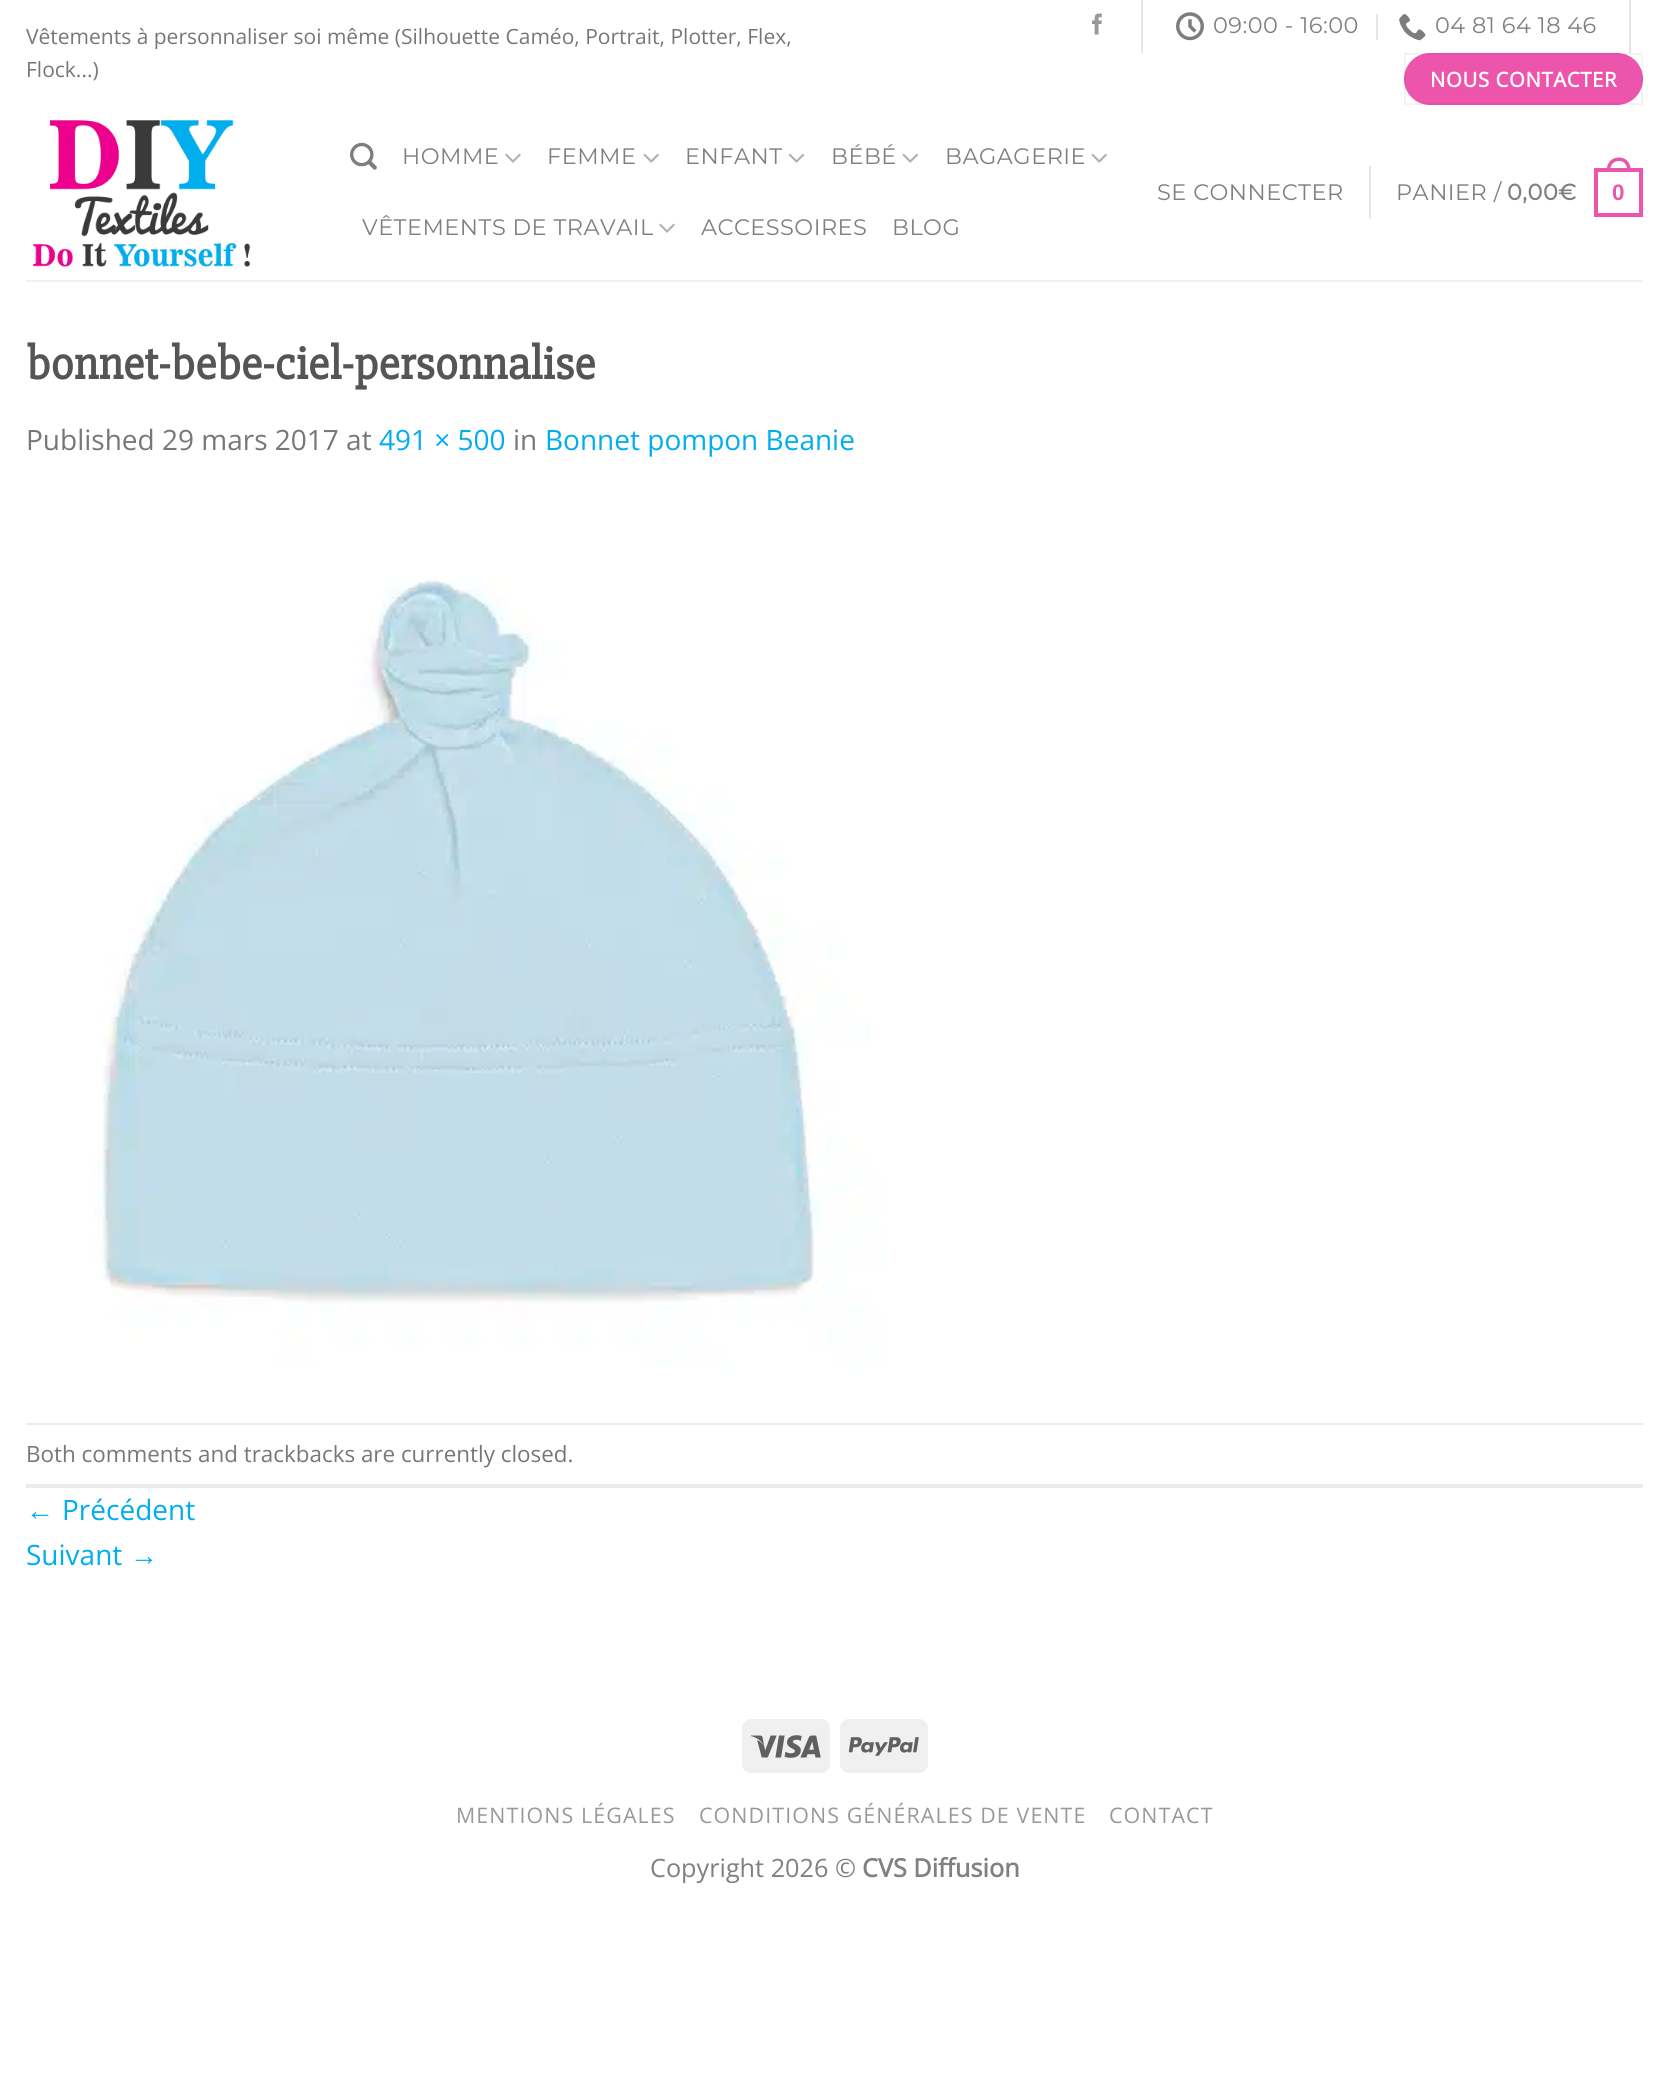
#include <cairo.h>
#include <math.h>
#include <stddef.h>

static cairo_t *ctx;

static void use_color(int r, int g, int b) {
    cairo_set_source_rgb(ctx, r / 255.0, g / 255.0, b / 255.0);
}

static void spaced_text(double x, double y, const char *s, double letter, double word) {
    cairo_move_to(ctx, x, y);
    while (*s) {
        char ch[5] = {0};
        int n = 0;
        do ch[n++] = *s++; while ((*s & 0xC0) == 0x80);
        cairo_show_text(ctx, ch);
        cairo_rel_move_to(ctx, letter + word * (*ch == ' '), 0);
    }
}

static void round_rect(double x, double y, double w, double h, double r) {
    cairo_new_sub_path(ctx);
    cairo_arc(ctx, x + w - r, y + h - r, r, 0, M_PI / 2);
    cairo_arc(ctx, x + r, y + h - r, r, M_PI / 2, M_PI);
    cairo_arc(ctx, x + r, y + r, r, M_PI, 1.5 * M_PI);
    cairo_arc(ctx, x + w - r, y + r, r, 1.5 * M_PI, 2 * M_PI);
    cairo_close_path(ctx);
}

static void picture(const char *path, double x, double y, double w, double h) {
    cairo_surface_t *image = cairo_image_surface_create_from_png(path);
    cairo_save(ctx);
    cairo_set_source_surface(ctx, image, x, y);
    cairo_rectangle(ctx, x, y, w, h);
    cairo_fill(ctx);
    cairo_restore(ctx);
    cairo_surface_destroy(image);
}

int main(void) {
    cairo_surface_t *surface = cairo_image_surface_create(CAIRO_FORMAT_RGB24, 1669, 2082);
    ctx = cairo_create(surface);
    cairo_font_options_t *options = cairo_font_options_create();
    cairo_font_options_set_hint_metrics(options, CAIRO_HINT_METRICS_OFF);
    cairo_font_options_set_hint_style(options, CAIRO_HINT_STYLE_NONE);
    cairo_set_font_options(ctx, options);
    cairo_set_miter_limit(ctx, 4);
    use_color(255, 255, 255);
    cairo_paint(ctx);
    cairo_select_font_face(ctx, "Open Sans", CAIRO_FONT_SLANT_NORMAL, CAIRO_FONT_WEIGHT_NORMAL);
    cairo_set_font_size(ctx, 21);
    use_color(119, 119, 119);
    cairo_move_to(ctx, 26, 44);
    cairo_show_text(ctx, "Vêtements à personnaliser soi même (Silhouette Caméo, Portrait, Plotter, Flex,");
    cairo_move_to(ctx, 26, 77);
    cairo_show_text(ctx, "Flock...)");
    picture("img1.png", 1092, 13, 10, 22);
    use_color(230, 230, 230);
    cairo_rectangle(ctx, 1141, 0, 2, 53);
    cairo_fill(ctx);
    picture("img2.png", 1176, 12, 28, 29);
    cairo_select_font_face(ctx, "Montserrat Thin", CAIRO_FONT_SLANT_NORMAL, CAIRO_FONT_WEIGHT_NORMAL);
    cairo_set_font_size(ctx, 22.4);
    use_color(128, 128, 128);
    spaced_text(1213, 33, "09:00 - 16:00", 0.5, 0);
    use_color(230, 230, 230);
    cairo_rectangle(ctx, 1376, 14, 2, 26);
    cairo_fill(ctx);
    picture("img3.png", 1399, 14, 27, 27);
    use_color(128, 128, 128);
    spaced_text(1435, 33, "04 81 64 18 46", 0.5, 0);
    use_color(230, 230, 230);
    cairo_rectangle(ctx, 1629, 0, 2, 53);
    cairo_fill(ctx);
    use_color(237, 85, 173);
    round_rect(1404, 53, 239, 52, 26);
    cairo_fill(ctx);
    cairo_rectangle(ctx, 1405, 54, 237, 50);
    cairo_set_source_rgba(ctx, 0, 0, 0, 0.05);
    cairo_stroke(ctx);
    cairo_select_font_face(ctx, "Open Sans", CAIRO_FONT_SLANT_NORMAL, CAIRO_FONT_WEIGHT_BOLD);
    cairo_set_font_size(ctx, 20.4);
    use_color(255, 255, 255);
    spaced_text(1430, 87, "NOUS CONTACTER", 0.6, 0);
    picture("img4.png", 33, 120, 218, 147);
    picture("img5.png", 350, 142, 27, 28);
    cairo_select_font_face(ctx, "Montserrat Thin", CAIRO_FONT_SLANT_NORMAL, CAIRO_FONT_WEIGHT_NORMAL);
    cairo_set_font_size(ctx, 22.4);
    use_color(128, 128, 128);
    spaced_text(402, 164, "HOMME", 0.5, 0);
    picture("img6.png", 505, 153, 16, 10);
    spaced_text(547, 164, "FEMME", 0.5, 0);
    picture("img7.png", 643, 153, 16, 10);
    spaced_text(685, 164, "ENFANT", 0.5, 0);
    picture("img8.png", 788, 153, 17, 10);
    spaced_text(831, 164, "BÉBÉ", 0.5, 0);
    picture("img7.png", 902, 153, 16, 10);
    spaced_text(945, 164, "BAGAGERIE", 0.5, 0);
    picture("img7.png", 1091, 153, 16, 10);
    spaced_text(362, 235, "VÊTEMENTS DE TRAVAIL", 0.5, 0);
    picture("img6.png", 659, 223, 16, 10);
    spaced_text(701, 235, "ACCESSOIRES", 0.5, 0);
    spaced_text(892, 235, "BLOG", 0.5, 0);
    spaced_text(1157, 200, "SE CONNECTER", 0.5, 0);
    use_color(230, 230, 230);
    cairo_rectangle(ctx, 1369, 166, 2, 53);
    cairo_fill(ctx);
    use_color(128, 128, 128);
    spaced_text(1396, 200, "PANIER /", 0.5, 0);
    cairo_select_font_face(ctx, "Montserrat", CAIRO_FONT_SLANT_NORMAL, CAIRO_FONT_WEIGHT_BOLD);
    spaced_text(1507, 200, "0,00€", 0.5, 0);
    cairo_rectangle(ctx, 1596, 170, 45, 45);
    use_color(237, 85, 173);
    cairo_set_line_width(ctx, 4);
    cairo_stroke(ctx);
    cairo_set_fill_rule(ctx, CAIRO_FILL_RULE_EVEN_ODD);
    cairo_new_path(ctx);
    cairo_move_to(ctx, 1619, 157.5);
    cairo_curve_to(ctx, 1627, 157.5, 1631, 164, 1631, 171.5);
    cairo_line_to(ctx, 1606.5, 171.5);
    cairo_curve_to(ctx, 1606.5, 164, 1610.5, 157.5, 1619, 157.5);
    cairo_close_path(ctx);
    cairo_move_to(ctx, 1619, 161);
    cairo_curve_to(ctx, 1625, 161, 1627.5, 166, 1627.5, 171.5);
    cairo_line_to(ctx, 1610, 171.5);
    cairo_curve_to(ctx, 1610, 166, 1612.5, 161, 1619, 161);
    cairo_close_path(ctx);
    cairo_fill(ctx);
    cairo_select_font_face(ctx, "Liberation Sans", CAIRO_FONT_SLANT_NORMAL, CAIRO_FONT_WEIGHT_BOLD);
    spaced_text(1612, 200, "0", 0.5, 0);
    use_color(241, 241, 241);
    cairo_rectangle(ctx, 26, 280, 1617, 2);
    cairo_fill(ctx);
    cairo_select_font_face(ctx, "Slabo 27px", CAIRO_FONT_SLANT_NORMAL, CAIRO_FONT_WEIGHT_BOLD);
    cairo_set_font_size(ctx, 47.6);
    use_color(85, 85, 85);
    cairo_move_to(ctx, 26, 379);
    cairo_show_text(ctx, "bonnet-bebe-ciel-personnalise");
    cairo_select_font_face(ctx, "Open Sans", CAIRO_FONT_SLANT_NORMAL, CAIRO_FONT_WEIGHT_NORMAL);
    cairo_set_font_size(ctx, 28);
    use_color(119, 119, 119);
    cairo_move_to(ctx, 26, 450);
    cairo_show_text(ctx, "Published 29 mars 2017 at");
    use_color(0, 173, 239);
    cairo_move_to(ctx, 379, 450);
    cairo_show_text(ctx, "491 × 500");
    use_color(119, 119, 119);
    cairo_move_to(ctx, 513, 450);
    cairo_show_text(ctx, "in");
    use_color(0, 173, 239);
    cairo_move_to(ctx, 545, 450);
    cairo_show_text(ctx, "Bonnet pompon Beanie");
    picture("img9.png", 94, 576, 792, 792);
    use_color(236, 236, 236);
    cairo_rectangle(ctx, 26, 1423, 1617, 2);
    cairo_fill(ctx);
    cairo_rectangle(ctx, 26, 1484, 1617, 4);
    cairo_fill(ctx);
    cairo_set_font_size(ctx, 22.4);
    use_color(119, 119, 119);
    cairo_move_to(ctx, 26, 1462);
    cairo_show_text(ctx, "Both comments and trackbacks are currently closed.");
    cairo_select_font_face(ctx, "Liberation Sans", CAIRO_FONT_SLANT_NORMAL, CAIRO_FONT_WEIGHT_NORMAL);
    cairo_set_font_size(ctx, 28);
    use_color(0, 173, 239);
    cairo_move_to(ctx, 26, 1520);
    cairo_show_text(ctx, "←");
    cairo_select_font_face(ctx, "Open Sans", CAIRO_FONT_SLANT_NORMAL, CAIRO_FONT_WEIGHT_NORMAL);
    cairo_move_to(ctx, 62, 1520);
    cairo_show_text(ctx, "Précédent");
    cairo_move_to(ctx, 26, 1565);
    cairo_show_text(ctx, "Suivant");
    cairo_select_font_face(ctx, "Liberation Sans", CAIRO_FONT_SLANT_NORMAL, CAIRO_FONT_WEIGHT_NORMAL);
    cairo_move_to(ctx, 130, 1565);
    cairo_show_text(ctx, "→");
    use_color(240, 240, 240);
    round_rect(742, 1719, 88, 54, 9);
    cairo_fill(ctx);
    picture("img10.png", 751, 1735, 70, 23);
    round_rect(840, 1719, 88, 54, 9);
    cairo_fill(ctx);
    picture("img11.png", 849, 1737, 70, 19);
    cairo_select_font_face(ctx, "Open Sans", CAIRO_FONT_SLANT_NORMAL, CAIRO_FONT_WEIGHT_NORMAL);
    cairo_set_font_size(ctx, 21.4);
    use_color(153, 153, 153);
    spaced_text(456, 1823, "MENTIONS LÉGALES", 1.1, 0);
    spaced_text(699, 1823, "CONDITIONS GÉNÉRALES DE VENTE", 1.1, 0);
    spaced_text(1109, 1823, "CONTACT", 1.1, 0);
    cairo_set_font_size(ctx, 25.25);
    use_color(128, 128, 128);
    cairo_move_to(ctx, 650, 1877);
    cairo_show_text(ctx, "Copyright 2026 ©");
    cairo_select_font_face(ctx, "Open Sans", CAIRO_FONT_SLANT_NORMAL, CAIRO_FONT_WEIGHT_BOLD);
    cairo_move_to(ctx, 862, 1877);
    cairo_show_text(ctx, "CVS Diffusion");
    cairo_surface_write_to_png(surface, "result.png");
    cairo_font_options_destroy(options);
    cairo_destroy(ctx);
    cairo_surface_destroy(surface);
    return 0;
}
